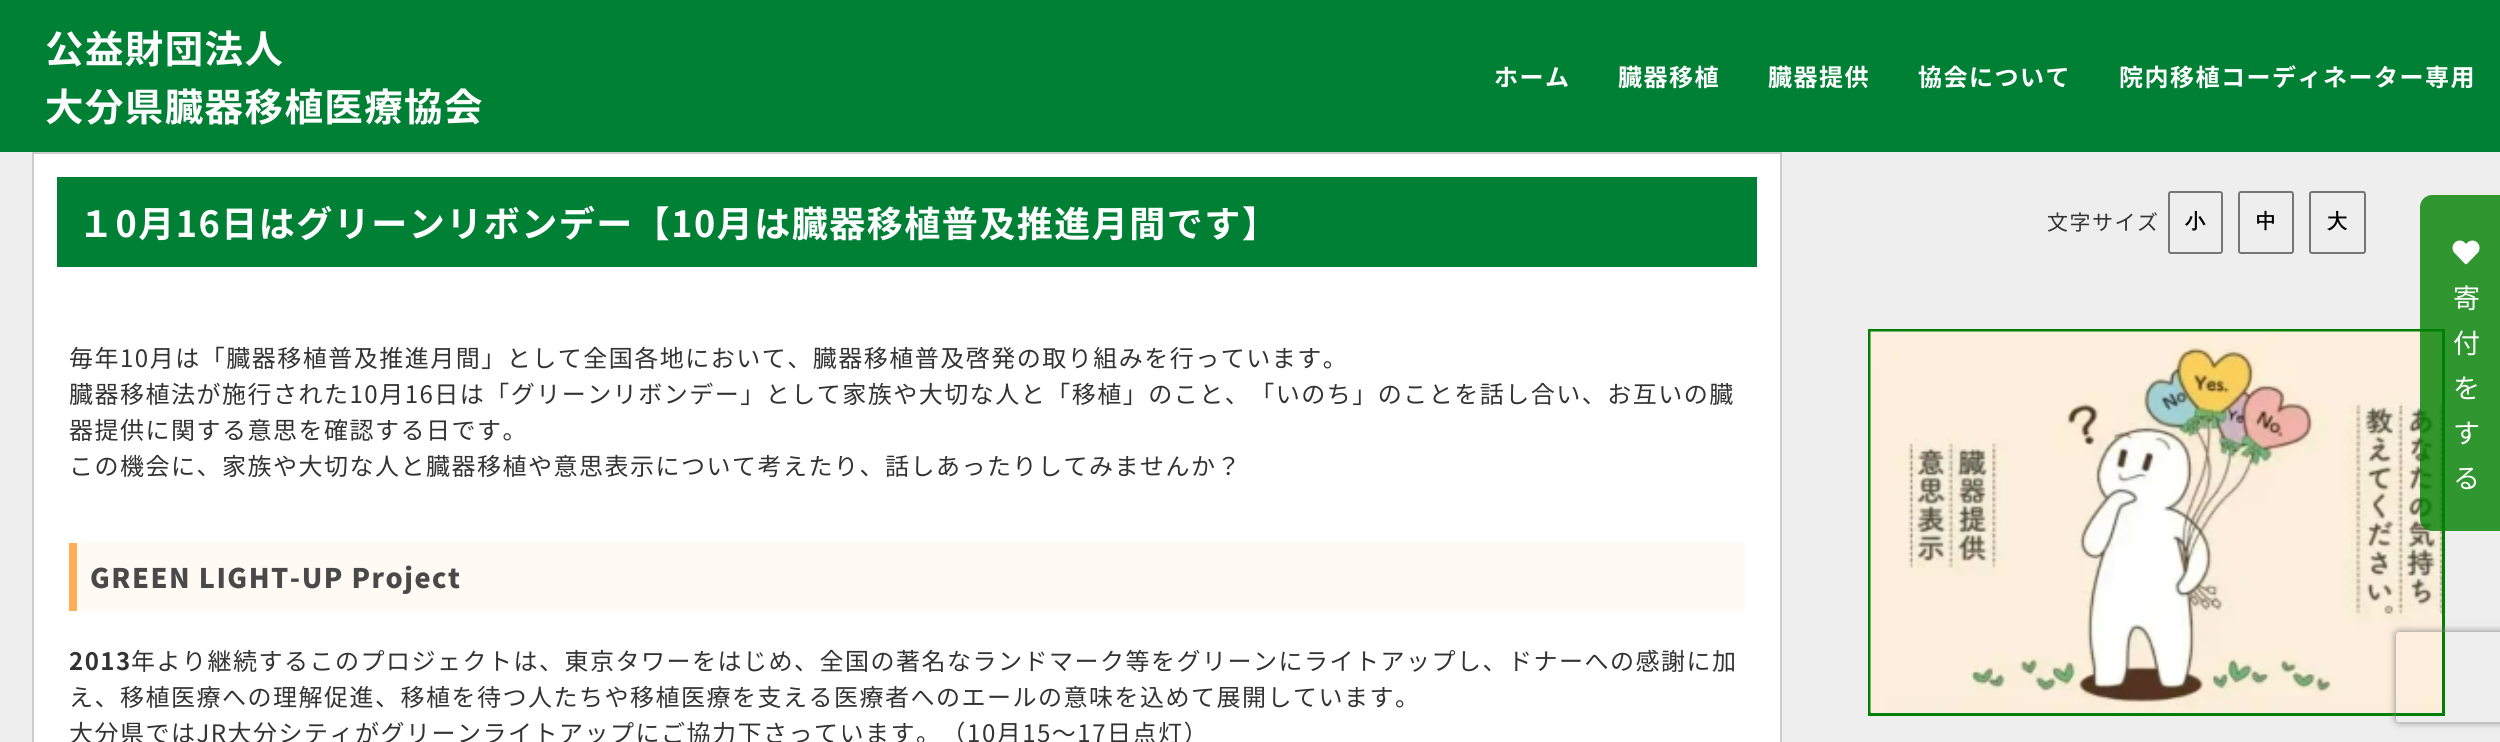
#include <cairo.h>
#include <math.h>
#include <stddef.h>

static cairo_t *ctx;

static void use_color(int r, int g, int b) {
    cairo_set_source_rgb(ctx, r / 255.0, g / 255.0, b / 255.0);
}

static void spaced_text(double x, double y, const char *s, double letter, double word) {
    cairo_move_to(ctx, x, y);
    while (*s) {
        char ch[5] = {0};
        int n = 0;
        do ch[n++] = *s++; while ((*s & 0xC0) == 0x80);
        cairo_show_text(ctx, ch);
        cairo_rel_move_to(ctx, letter + word * (*ch == ' '), 0);
    }
}

static void round_rect(double x, double y, double w, double h, double r) {
    cairo_new_sub_path(ctx);
    cairo_arc(ctx, x + w - r, y + h - r, r, 0, M_PI / 2);
    cairo_arc(ctx, x + r, y + h - r, r, M_PI / 2, M_PI);
    cairo_arc(ctx, x + r, y + r, r, M_PI, 1.5 * M_PI);
    cairo_arc(ctx, x + w - r, y + r, r, 1.5 * M_PI, 2 * M_PI);
    cairo_close_path(ctx);
}

static void shadow(double x, double y, double w, double h, double r, double blur, double alpha) {
    cairo_push_group_with_content(ctx, CAIRO_CONTENT_ALPHA);
    cairo_set_operator(ctx, CAIRO_OPERATOR_SOURCE);
    for (int i = 15; i >= -15 && fmin(w, h) + blur * i / 3 > 0; i -= 2) {
        double e = blur * i / 6;
        cairo_set_source_rgba(ctx, 0, 0, 0, alpha * erfc((i - 1) / 8.5) / 2);
        round_rect(x - e, y - e, w + 2 * e, h + 2 * e, fmax(0, fmin(r + e + blur * .6, fmin(w, h) / 2 + e)));
        cairo_fill(ctx);
    }
    cairo_pattern_t *soft = cairo_pop_group(ctx);
    cairo_mask(ctx, soft);
    cairo_pattern_destroy(soft);
}

static void picture(const char *path, double x, double y, double w, double h) {
    cairo_surface_t *image = cairo_image_surface_create_from_png(path);
    cairo_save(ctx);
    cairo_set_source_surface(ctx, image, x, y);
    cairo_rectangle(ctx, x, y, w, h);
    cairo_fill(ctx);
    cairo_restore(ctx);
    cairo_surface_destroy(image);
}

int main(void) {
    cairo_surface_t *surface = cairo_image_surface_create(CAIRO_FORMAT_RGB24, 2500, 742);
    ctx = cairo_create(surface);
    cairo_font_options_t *options = cairo_font_options_create();
    cairo_font_options_set_hint_metrics(options, CAIRO_HINT_METRICS_OFF);
    cairo_font_options_set_hint_style(options, CAIRO_HINT_STYLE_NONE);
    cairo_set_font_options(ctx, options);
    cairo_set_miter_limit(ctx, 4);
    use_color(0, 128, 53);
    cairo_paint(ctx);
    cairo_select_font_face(ctx, "Noto Sans JP", CAIRO_FONT_SLANT_NORMAL, CAIRO_FONT_WEIGHT_BOLD);
    cairo_set_font_size(ctx, 38.4);
    use_color(255, 255, 255);
    spaced_text(45, 63, "公益財団法人", 1.5, 0);
    spaced_text(45, 121, "大分県臓器移植医療協会", 1.5, 0);
    cairo_set_font_size(ctx, 24);
    spaced_text(1494, 86, "ホーム", 1.5, 0);
    spaced_text(1618, 86, "臓器移植", 1.5, 0);
    spaced_text(1768, 86, "臓器提供", 1.5, 0);
    spaced_text(1918, 86, "協会について", 1.5, 0);
    spaced_text(2119, 86, "院内移植コーディネーター専用", 1.5, 0);
    use_color(238, 238, 238);
    cairo_rectangle(ctx, 0, 152, 2500, 590);
    cairo_fill(ctx);
    use_color(255, 255, 255);
    cairo_rectangle(ctx, 33, 153, 1748, 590);
    cairo_fill_preserve(ctx);
    use_color(204, 204, 204);
    cairo_stroke(ctx);
    use_color(0, 128, 53);
    cairo_rectangle(ctx, 57, 177, 1700, 90);
    cairo_fill(ctx);
    cairo_set_font_size(ctx, 36);
    use_color(255, 255, 255);
    spaced_text(78, 237, "１0月16日はグリーンリボンデー【10月は臓器移植普及推進月間です】", 1.5, 0);
    cairo_select_font_face(ctx, "Noto Sans JP", CAIRO_FONT_SLANT_NORMAL, CAIRO_FONT_WEIGHT_NORMAL);
    cairo_set_font_size(ctx, 24);
    use_color(51, 51, 51);
    spaced_text(69, 367, "毎年10月は「臓器移植普及推進月間」として全国各地において、臓器移植普及啓発の取り組みを行っています。", 1.5, 0);
    spaced_text(69, 403, "臓器移植法が施行された10月16日は「グリーンリボンデー」として家族や大切な人と「移植」のこと、「いのち」のことを話し合い、お互いの臓", 1.5, 0);
    spaced_text(69, 439, "器提供に関する意思を確認する日です。", 1.5, 0);
    spaced_text(69, 475, "この機会に、家族や大切な人と臓器移植や意思表示について考えたり、話しあったりしてみませんか？", 1.5, 0);
    use_color(255, 250, 244);
    cairo_rectangle(ctx, 77, 543, 1668, 68);
    cairo_fill(ctx);
    use_color(255, 175, 88);
    cairo_rectangle(ctx, 69, 543, 8, 68);
    cairo_fill(ctx);
    cairo_select_font_face(ctx, "Noto Sans JP Black", CAIRO_FONT_SLANT_NORMAL, CAIRO_FONT_WEIGHT_NORMAL);
    cairo_set_font_size(ctx, 27);
    use_color(73, 73, 73);
    spaced_text(90, 588, "GREEN LIGHT-UP Project", 1.5, 0);
    cairo_select_font_face(ctx, "Noto Sans JP", CAIRO_FONT_SLANT_NORMAL, CAIRO_FONT_WEIGHT_BOLD);
    cairo_set_font_size(ctx, 24);
    use_color(51, 51, 51);
    spaced_text(69, 670, "2013", 1.5, 0);
    cairo_select_font_face(ctx, "Noto Sans JP", CAIRO_FONT_SLANT_NORMAL, CAIRO_FONT_WEIGHT_NORMAL);
    spaced_text(131, 670, "年より継続するこのプロジェクトは、東京タワーをはじめ、全国の著名なランドマーク等をグリーンにライトアップし、ドナーへの感謝に加", 1.5, 0);
    spaced_text(69, 706, "え、移植医療への理解促進、移植を待つ人たちや移植医療を支える医療者へのエールの意味を込めて展開しています。", 1.5, 0);
    spaced_text(69, 742, "大分県ではJR大分シティがグリーンライトアップにご協力下さっています。（10月15～17日点灯）", 1.5, 0);
    cairo_set_font_size(ctx, 21);
    spaced_text(2047, 230, "文字サイズ", 1.5, 0);
    round_rect(2169, 192, 53, 61, 2);
    use_color(118, 118, 118);
    cairo_stroke(ctx);
    cairo_select_font_face(ctx, "WenQuanYi Zen Hei", CAIRO_FONT_SLANT_NORMAL, CAIRO_FONT_WEIGHT_BOLD);
    cairo_set_font_size(ctx, 20);
    use_color(0, 0, 0);
    cairo_move_to(ctx, 2185, 228);
    cairo_show_text(ctx, "小");
    round_rect(2239, 192, 54, 61, 2);
    use_color(118, 118, 118);
    cairo_stroke(ctx);
    use_color(0, 0, 0);
    cairo_move_to(ctx, 2256, 228);
    cairo_show_text(ctx, "中");
    round_rect(2310, 192, 55, 61, 2);
    use_color(118, 118, 118);
    cairo_stroke(ctx);
    use_color(0, 0, 0);
    cairo_move_to(ctx, 2327, 228);
    cairo_show_text(ctx, "大");
    cairo_rectangle(ctx, 1869.5, 330.5, 574, 384);
    use_color(0, 128, 0);
    cairo_set_line_width(ctx, 3);
    cairo_stroke(ctx);
    picture("img1.png", 1870, 331, 572, 382);
    cairo_set_source_rgba(ctx, 0, 0.502, 0, 0.8);
    cairo_new_path(ctx);
    cairo_move_to(ctx, 2432, 195);
    cairo_line_to(ctx, 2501, 195);
    cairo_line_to(ctx, 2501, 531);
    cairo_line_to(ctx, 2432, 531);
    cairo_curve_to(ctx, 2425.5, 531, 2420, 525.5, 2420, 519);
    cairo_line_to(ctx, 2420, 207);
    cairo_curve_to(ctx, 2420, 200.5, 2425.5, 195, 2432, 195);
    cairo_close_path(ctx);
    cairo_fill(ctx);
    picture("img2.png", 2452, 240, 28, 25);
    cairo_select_font_face(ctx, "Noto Sans JP", CAIRO_FONT_SLANT_NORMAL, CAIRO_FONT_WEIGHT_NORMAL);
    cairo_set_font_size(ctx, 27);
    use_color(255, 255, 255);
    spaced_text(2453, 308, "寄", 1.5, 0);
    spaced_text(2453, 353, "付", 1.5, 0);
    spaced_text(2453, 398, "を", 1.5, 0);
    spaced_text(2453, 443, "す", 1.5, 0);
    spaced_text(2453, 488, "る", 1.5, 0);
    cairo_save(ctx);
    cairo_set_fill_rule(ctx, CAIRO_FILL_RULE_EVEN_ODD);
    cairo_new_path(ctx);
    cairo_move_to(ctx, 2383, 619);
    cairo_line_to(ctx, 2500, 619);
    cairo_line_to(ctx, 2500, 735);
    cairo_line_to(ctx, 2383, 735);
    cairo_close_path(ctx);
    cairo_move_to(ctx, 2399, 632);
    cairo_line_to(ctx, 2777, 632);
    cairo_curve_to(ctx, 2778.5, 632, 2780, 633.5, 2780, 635);
    cairo_line_to(ctx, 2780, 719);
    cairo_curve_to(ctx, 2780, 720.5, 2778.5, 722, 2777, 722);
    cairo_line_to(ctx, 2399, 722);
    cairo_curve_to(ctx, 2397.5, 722, 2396, 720.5, 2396, 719);
    cairo_line_to(ctx, 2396, 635);
    cairo_curve_to(ctx, 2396, 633.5, 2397.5, 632, 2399, 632);
    cairo_close_path(ctx);
    cairo_clip(ctx);
    use_color(128, 128, 128);
    shadow(2396, 632, 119, 90, 3, 4, 1);
    cairo_restore(ctx);
    cairo_surface_write_to_png(surface, "result.png");
    cairo_font_options_destroy(options);
    cairo_destroy(ctx);
    cairo_surface_destroy(surface);
    return 0;
}
